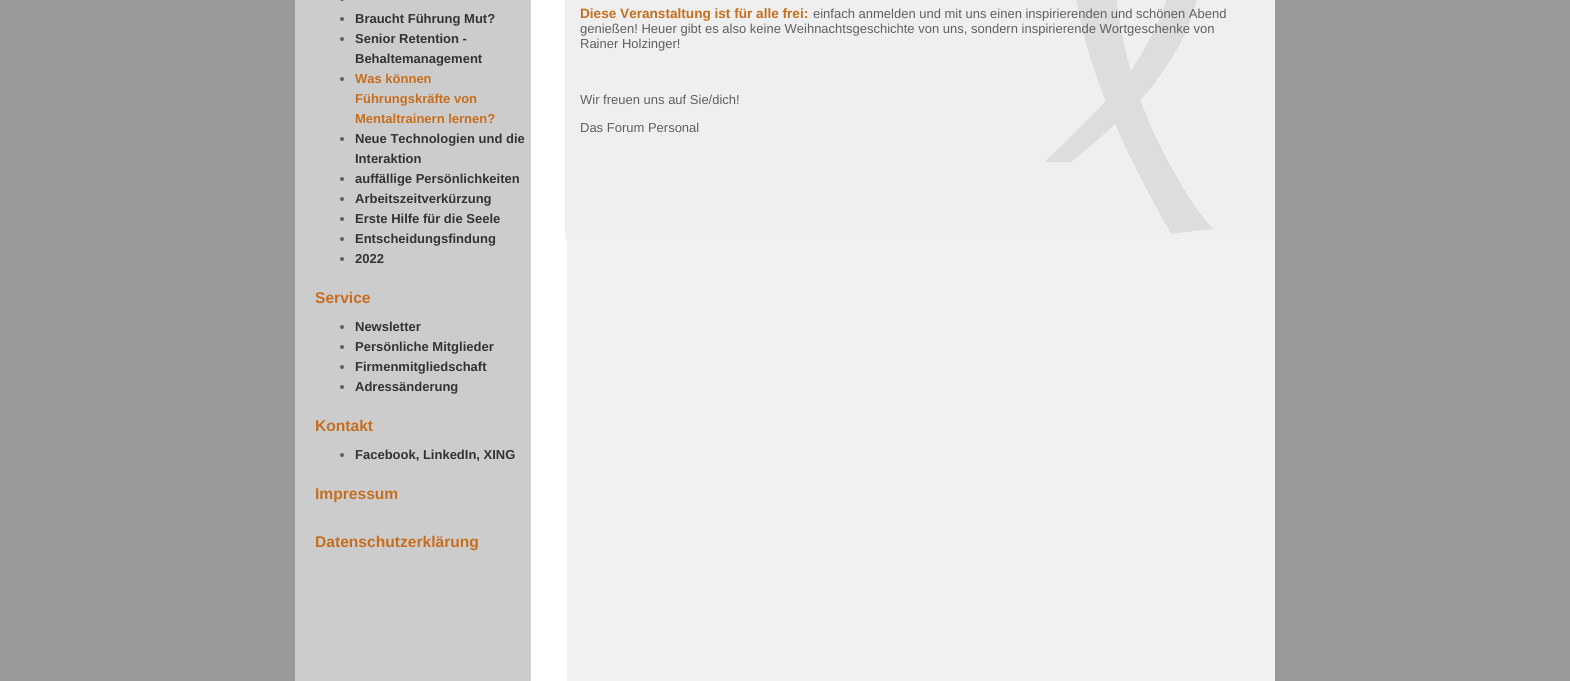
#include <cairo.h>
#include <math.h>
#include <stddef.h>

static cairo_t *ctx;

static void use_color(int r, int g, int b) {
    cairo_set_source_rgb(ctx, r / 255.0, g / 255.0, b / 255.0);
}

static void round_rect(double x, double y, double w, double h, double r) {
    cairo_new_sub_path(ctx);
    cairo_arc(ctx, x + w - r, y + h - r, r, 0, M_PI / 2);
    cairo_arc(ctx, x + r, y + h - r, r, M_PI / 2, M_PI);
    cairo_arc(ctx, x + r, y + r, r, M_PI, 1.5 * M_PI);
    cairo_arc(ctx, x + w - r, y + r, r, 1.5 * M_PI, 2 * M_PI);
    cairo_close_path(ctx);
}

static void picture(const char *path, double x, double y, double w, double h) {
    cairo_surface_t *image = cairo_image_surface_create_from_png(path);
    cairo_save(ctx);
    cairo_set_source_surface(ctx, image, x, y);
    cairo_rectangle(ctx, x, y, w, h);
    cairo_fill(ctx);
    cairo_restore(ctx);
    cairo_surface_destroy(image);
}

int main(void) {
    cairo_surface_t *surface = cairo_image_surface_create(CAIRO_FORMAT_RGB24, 1570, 681);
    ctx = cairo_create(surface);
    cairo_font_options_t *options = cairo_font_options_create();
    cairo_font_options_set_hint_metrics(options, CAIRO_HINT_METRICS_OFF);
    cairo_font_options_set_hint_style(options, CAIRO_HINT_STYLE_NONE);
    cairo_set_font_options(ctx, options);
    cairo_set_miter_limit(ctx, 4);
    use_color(153, 153, 153);
    cairo_paint(ctx);
    picture("img1.png", 295, 0, 980, 681);
    use_color(96, 96, 96);
    round_rect(340, -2, 4, 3, 2);
    cairo_fill(ctx);
    cairo_arc(ctx, 342, 19, 2, 0, 2 * M_PI);
    cairo_fill(ctx);
    cairo_select_font_face(ctx, "Liberation Sans", CAIRO_FONT_SLANT_NORMAL, CAIRO_FONT_WEIGHT_BOLD);
    cairo_set_font_size(ctx, 13);
    use_color(51, 51, 51);
    cairo_move_to(ctx, 355, 23);
    cairo_show_text(ctx, "Braucht Führung Mut?");
    use_color(96, 96, 96);
    cairo_new_path(ctx);
    cairo_arc(ctx, 342, 39, 2, 0, 2 * M_PI);
    cairo_fill(ctx);
    use_color(51, 51, 51);
    cairo_move_to(ctx, 355, 43);
    cairo_show_text(ctx, "Senior Retention -");
    cairo_move_to(ctx, 355, 63);
    cairo_show_text(ctx, "Behaltemanagement");
    use_color(96, 96, 96);
    cairo_new_path(ctx);
    cairo_arc(ctx, 342, 79, 2, 0, 2 * M_PI);
    cairo_fill(ctx);
    use_color(198, 110, 29);
    cairo_move_to(ctx, 355, 83);
    cairo_show_text(ctx, "Was können");
    cairo_move_to(ctx, 355, 103);
    cairo_show_text(ctx, "Führungskräfte von");
    cairo_move_to(ctx, 355, 123);
    cairo_show_text(ctx, "Mentaltrainern lernen?");
    use_color(96, 96, 96);
    cairo_new_path(ctx);
    cairo_arc(ctx, 342, 139, 2, 0, 2 * M_PI);
    cairo_fill(ctx);
    use_color(51, 51, 51);
    cairo_move_to(ctx, 355, 143);
    cairo_show_text(ctx, "Neue Technologien und die");
    cairo_move_to(ctx, 355, 163);
    cairo_show_text(ctx, "Interaktion");
    use_color(96, 96, 96);
    cairo_new_path(ctx);
    cairo_arc(ctx, 342, 179, 2, 0, 2 * M_PI);
    cairo_fill(ctx);
    use_color(51, 51, 51);
    cairo_move_to(ctx, 355, 183);
    cairo_show_text(ctx, "auffällige Persönlichkeiten");
    use_color(96, 96, 96);
    cairo_new_path(ctx);
    cairo_arc(ctx, 342, 199, 2, 0, 2 * M_PI);
    cairo_fill(ctx);
    use_color(51, 51, 51);
    cairo_move_to(ctx, 355, 203);
    cairo_show_text(ctx, "Arbeitszeitverkürzung");
    use_color(96, 96, 96);
    cairo_new_path(ctx);
    cairo_arc(ctx, 342, 219, 2, 0, 2 * M_PI);
    cairo_fill(ctx);
    use_color(51, 51, 51);
    cairo_move_to(ctx, 355, 223);
    cairo_show_text(ctx, "Erste Hilfe für die Seele");
    use_color(96, 96, 96);
    cairo_new_path(ctx);
    cairo_arc(ctx, 342, 239, 2, 0, 2 * M_PI);
    cairo_fill(ctx);
    use_color(51, 51, 51);
    cairo_move_to(ctx, 355, 243);
    cairo_show_text(ctx, "Entscheidungsfindung");
    use_color(96, 96, 96);
    cairo_new_path(ctx);
    cairo_arc(ctx, 342, 259, 2, 0, 2 * M_PI);
    cairo_fill(ctx);
    use_color(51, 51, 51);
    cairo_move_to(ctx, 355, 263);
    cairo_show_text(ctx, "2022");
    cairo_set_font_size(ctx, 15.6);
    use_color(198, 110, 29);
    cairo_move_to(ctx, 315, 303);
    cairo_show_text(ctx, "Service");
    use_color(96, 96, 96);
    cairo_new_path(ctx);
    cairo_arc(ctx, 342, 327, 2, 0, 2 * M_PI);
    cairo_fill(ctx);
    cairo_set_font_size(ctx, 13);
    use_color(51, 51, 51);
    cairo_move_to(ctx, 355, 331);
    cairo_show_text(ctx, "Newsletter");
    use_color(96, 96, 96);
    cairo_new_path(ctx);
    cairo_arc(ctx, 342, 347, 2, 0, 2 * M_PI);
    cairo_fill(ctx);
    use_color(51, 51, 51);
    cairo_move_to(ctx, 355, 351);
    cairo_show_text(ctx, "Persönliche Mitglieder");
    use_color(96, 96, 96);
    cairo_new_path(ctx);
    cairo_arc(ctx, 342, 367, 2, 0, 2 * M_PI);
    cairo_fill(ctx);
    use_color(51, 51, 51);
    cairo_move_to(ctx, 355, 371);
    cairo_show_text(ctx, "Firmenmitgliedschaft");
    use_color(96, 96, 96);
    cairo_new_path(ctx);
    cairo_arc(ctx, 342, 387, 2, 0, 2 * M_PI);
    cairo_fill(ctx);
    use_color(51, 51, 51);
    cairo_move_to(ctx, 355, 391);
    cairo_show_text(ctx, "Adressänderung");
    cairo_set_font_size(ctx, 15.6);
    use_color(198, 110, 29);
    cairo_move_to(ctx, 315, 431);
    cairo_show_text(ctx, "Kontakt");
    use_color(96, 96, 96);
    cairo_new_path(ctx);
    cairo_arc(ctx, 342, 455, 2, 0, 2 * M_PI);
    cairo_fill(ctx);
    cairo_set_font_size(ctx, 13);
    use_color(51, 51, 51);
    cairo_move_to(ctx, 355, 459);
    cairo_show_text(ctx, "Facebook, LinkedIn, XING");
    cairo_set_font_size(ctx, 15.6);
    use_color(198, 110, 29);
    cairo_move_to(ctx, 315, 499);
    cairo_show_text(ctx, "Impressum");
    cairo_move_to(ctx, 315, 547);
    cairo_show_text(ctx, "Datenschutzerklärung");
    use_color(239, 239, 239);
    cairo_rectangle(ctx, 565, 0, 710, 239);
    cairo_fill(ctx);
    picture("img2.png", 1045, 0, 168, 234);
    cairo_set_font_size(ctx, 13.6);
    use_color(198, 110, 29);
    cairo_move_to(ctx, 580, 18);
    cairo_show_text(ctx, "Diese Veranstaltung ist für alle frei:");
    cairo_select_font_face(ctx, "Liberation Sans", CAIRO_FONT_SLANT_NORMAL, CAIRO_FONT_WEIGHT_NORMAL);
    cairo_set_font_size(ctx, 13);
    use_color(96, 96, 96);
    cairo_move_to(ctx, 813, 18);
    cairo_show_text(ctx, "einfach anmelden und mit uns einen inspirierenden und schönen Abend");
    cairo_move_to(ctx, 580, 33);
    cairo_show_text(ctx, "genießen! Heuer gibt es also keine Weihnachtsgeschichte von uns, sondern inspirierende Wortgeschenke von");
    cairo_move_to(ctx, 580, 48);
    cairo_show_text(ctx, "Rainer Holzinger!");
    cairo_move_to(ctx, 580, 104);
    cairo_show_text(ctx, "Wir freuen uns auf Sie/dich!");
    cairo_move_to(ctx, 580, 132);
    cairo_show_text(ctx, "Das Forum Personal");
    cairo_surface_write_to_png(surface, "result.png");
    cairo_font_options_destroy(options);
    cairo_destroy(ctx);
    cairo_surface_destroy(surface);
    return 0;
}
